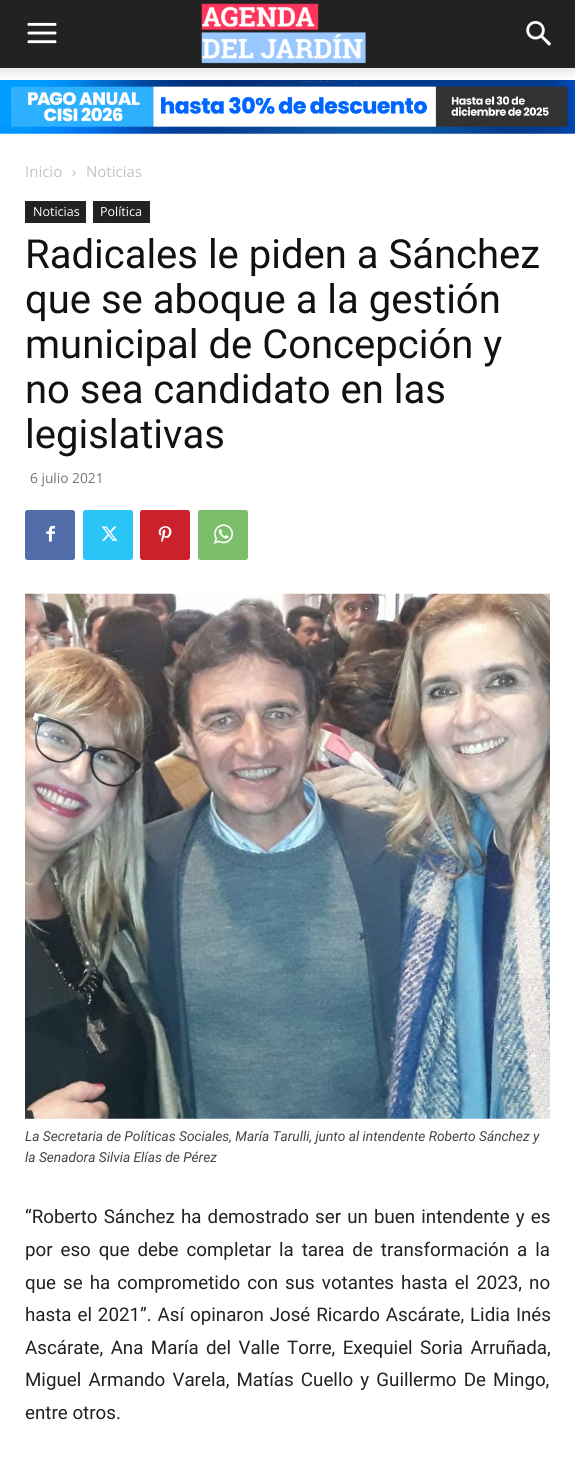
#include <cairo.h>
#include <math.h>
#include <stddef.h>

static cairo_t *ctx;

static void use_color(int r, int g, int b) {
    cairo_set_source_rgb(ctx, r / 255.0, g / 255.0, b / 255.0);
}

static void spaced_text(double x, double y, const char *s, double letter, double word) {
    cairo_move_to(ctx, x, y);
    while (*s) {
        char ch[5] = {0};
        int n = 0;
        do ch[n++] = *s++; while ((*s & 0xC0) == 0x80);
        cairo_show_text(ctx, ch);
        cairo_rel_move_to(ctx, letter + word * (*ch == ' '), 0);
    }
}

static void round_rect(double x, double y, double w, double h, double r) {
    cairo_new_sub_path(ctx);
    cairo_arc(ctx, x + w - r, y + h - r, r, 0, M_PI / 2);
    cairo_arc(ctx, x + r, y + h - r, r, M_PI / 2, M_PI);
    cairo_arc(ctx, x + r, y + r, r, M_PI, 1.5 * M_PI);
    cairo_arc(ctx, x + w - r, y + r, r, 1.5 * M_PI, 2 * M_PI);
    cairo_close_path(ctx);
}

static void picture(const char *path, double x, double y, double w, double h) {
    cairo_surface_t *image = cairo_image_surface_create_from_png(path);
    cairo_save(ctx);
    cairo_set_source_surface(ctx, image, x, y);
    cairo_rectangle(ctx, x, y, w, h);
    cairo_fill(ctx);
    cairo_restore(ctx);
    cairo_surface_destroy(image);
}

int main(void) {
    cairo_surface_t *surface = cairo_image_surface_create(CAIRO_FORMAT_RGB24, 575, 1467);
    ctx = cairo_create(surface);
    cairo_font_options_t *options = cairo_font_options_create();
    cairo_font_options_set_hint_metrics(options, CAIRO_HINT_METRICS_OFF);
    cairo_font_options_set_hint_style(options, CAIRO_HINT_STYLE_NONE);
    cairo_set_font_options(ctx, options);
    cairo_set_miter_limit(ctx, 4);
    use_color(255, 255, 255);
    cairo_paint(ctx);
    use_color(34, 34, 34);
    cairo_rectangle(ctx, 0, 0, 575, 68);
    cairo_fill(ctx);
    picture("img1.png", 27, 22, 30, 22);
    picture("img2.png", 201, 3, 165, 61);
    picture("img3.png", 526, 21, 25, 25);
    picture("img4.png", 0, 68, 575, 10);
    picture("img5.png", 0, 80, 575, 54);
    cairo_select_font_face(ctx, "Open Sans", CAIRO_FONT_SLANT_NORMAL, CAIRO_FONT_WEIGHT_NORMAL);
    cairo_set_font_size(ctx, 15);
    use_color(195, 195, 195);
    cairo_move_to(ctx, 25, 177);
    cairo_show_text(ctx, "Inicio");
    picture("img6.png", 72, 170, 4, 6);
    cairo_move_to(ctx, 86, 177);
    cairo_show_text(ctx, "Noticias");
    use_color(34, 34, 34);
    cairo_rectangle(ctx, 25, 201, 61, 22);
    cairo_fill(ctx);
    cairo_set_font_size(ctx, 12.5);
    use_color(255, 255, 255);
    cairo_move_to(ctx, 33, 216);
    cairo_show_text(ctx, "Noticias");
    use_color(34, 34, 34);
    cairo_rectangle(ctx, 93, 201, 57, 22);
    cairo_fill(ctx);
    use_color(255, 255, 255);
    cairo_move_to(ctx, 100, 216);
    cairo_show_text(ctx, "Política");
    cairo_select_font_face(ctx, "Roboto", CAIRO_FONT_SLANT_NORMAL, CAIRO_FONT_WEIGHT_NORMAL);
    cairo_set_font_size(ctx, 40);
    use_color(17, 17, 17);
    cairo_move_to(ctx, 25, 268);
    cairo_show_text(ctx, "Radicales le piden a Sánchez");
    cairo_move_to(ctx, 25, 313);
    cairo_show_text(ctx, "que se aboque a la gestión");
    cairo_move_to(ctx, 25, 358);
    cairo_show_text(ctx, "municipal de Concepción y");
    cairo_move_to(ctx, 25, 403);
    cairo_show_text(ctx, "no sea candidato en las");
    cairo_move_to(ctx, 25, 448);
    cairo_show_text(ctx, "legislativas");
    cairo_select_font_face(ctx, "Open Sans", CAIRO_FONT_SLANT_NORMAL, CAIRO_FONT_WEIGHT_NORMAL);
    cairo_set_font_size(ctx, 13.75);
    use_color(118, 118, 118);
    cairo_move_to(ctx, 30, 483);
    cairo_show_text(ctx, "6 julio 2021");
    use_color(81, 110, 171);
    round_rect(25, 510, 50, 50, 2.5);
    cairo_fill(ctx);
    picture("img7.png", 46, 525, 9, 17);
    use_color(41, 197, 246);
    round_rect(83, 510, 50, 50, 2.5);
    cairo_fill(ctx);
    picture("img8.png", 101, 526, 17, 15);
    use_color(202, 33, 42);
    round_rect(140, 510, 50, 50, 2.5);
    cairo_fill(ctx);
    picture("img9.png", 158, 526, 14, 17);
    use_color(123, 191, 106);
    round_rect(198, 510, 50, 50, 2.5);
    cairo_fill(ctx);
    picture("img10.png", 213, 524, 20, 20);
    picture("img11.png", 25, 593, 525, 526);
    cairo_select_font_face(ctx, "Roboto", CAIRO_FONT_SLANT_ITALIC, CAIRO_FONT_WEIGHT_NORMAL);
    use_color(68, 68, 68);
    cairo_move_to(ctx, 25, 1141);
    cairo_show_text(ctx, "La Secretaria de Políticas Sociales, María Tarulli, junto al intendente Roberto Sánchez y");
    cairo_move_to(ctx, 25, 1162);
    cairo_show_text(ctx, "la Senadora Silvia Elías de Pérez");
    cairo_select_font_face(ctx, "Roboto", CAIRO_FONT_SLANT_NORMAL, CAIRO_FONT_WEIGHT_NORMAL);
    cairo_set_font_size(ctx, 18.75);
    use_color(34, 34, 34);
    spaced_text(25, 1223, "“Roberto Sánchez ha demostrado ser un buen intendente y es", 0, 1.5);
    spaced_text(25, 1256, "por eso que debe completar la tarea de transformación a la", 0, 3.25);
    spaced_text(25, 1289, "que se ha comprometido con sus votantes hasta el 2023, no", 0, 2.4);
    spaced_text(25, 1321, "hasta el 2021”. Así opinaron José Ricardo Ascárate, Lidia Inés", 0, 1.25);
    spaced_text(25, 1354, "Ascárate, Ana María del Valle Torre, Exequiel Soria Arruñada,", 0, 2.75);
    spaced_text(25, 1386, "Miguel Armando Varela, Matías Cuello y Guillermo De Mingo,", 0, 2.5);
    cairo_move_to(ctx, 25, 1419);
    cairo_show_text(ctx, "entre otros.");
    cairo_surface_write_to_png(surface, "result.png");
    cairo_font_options_destroy(options);
    cairo_destroy(ctx);
    cairo_surface_destroy(surface);
    return 0;
}
